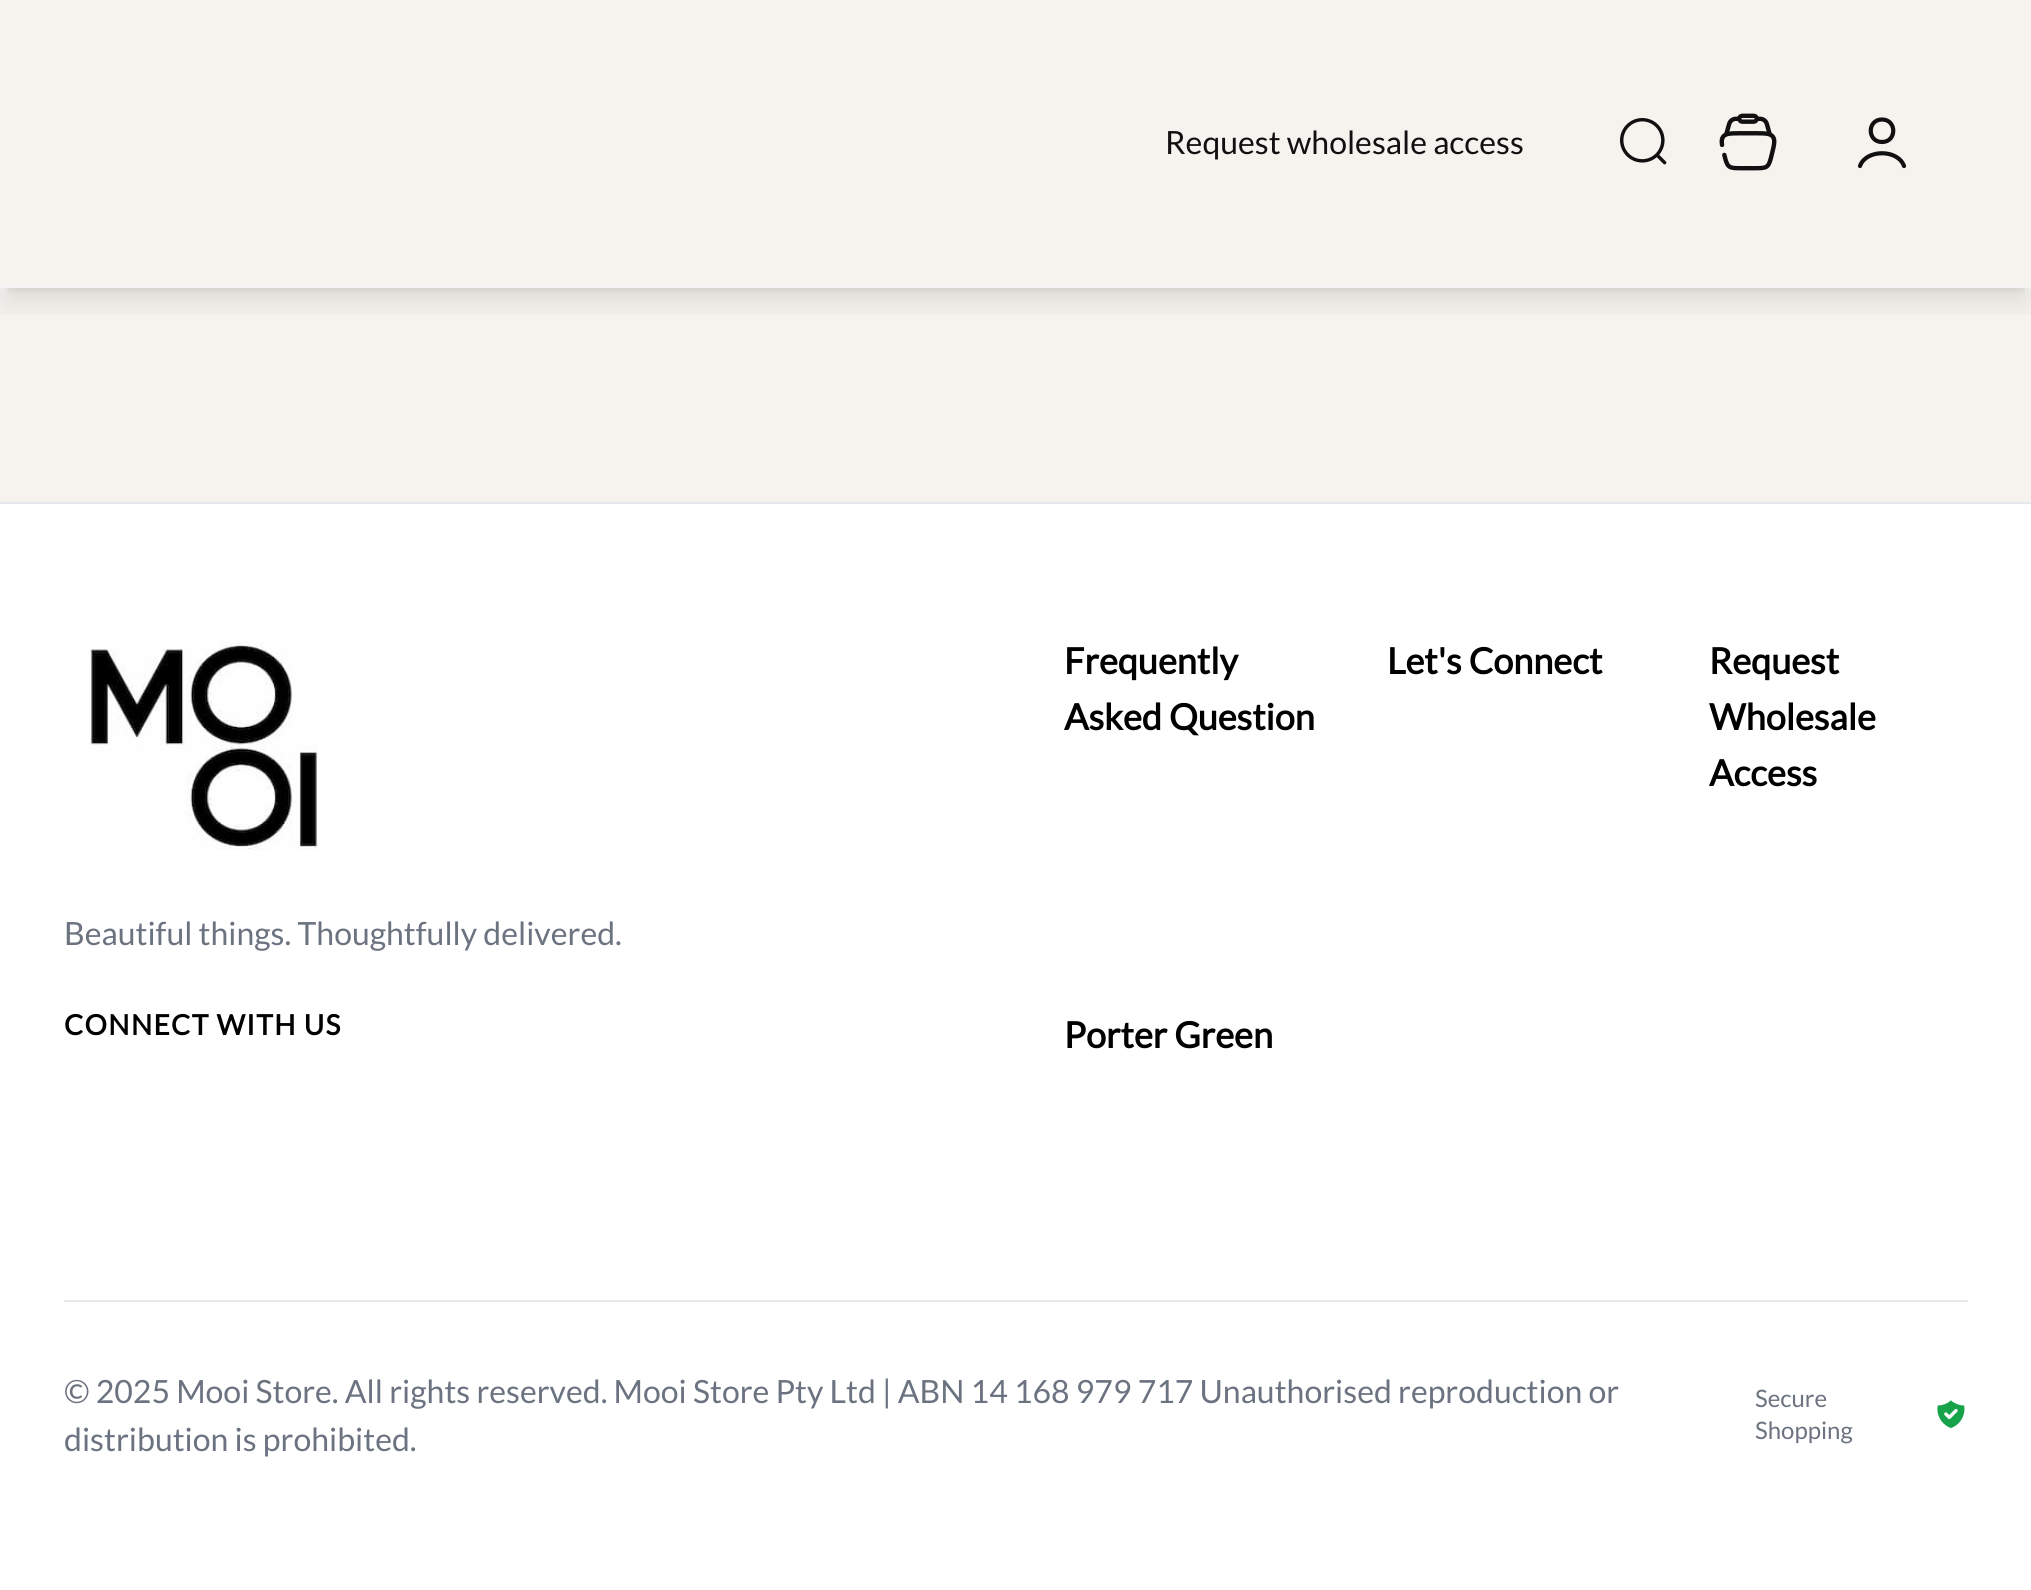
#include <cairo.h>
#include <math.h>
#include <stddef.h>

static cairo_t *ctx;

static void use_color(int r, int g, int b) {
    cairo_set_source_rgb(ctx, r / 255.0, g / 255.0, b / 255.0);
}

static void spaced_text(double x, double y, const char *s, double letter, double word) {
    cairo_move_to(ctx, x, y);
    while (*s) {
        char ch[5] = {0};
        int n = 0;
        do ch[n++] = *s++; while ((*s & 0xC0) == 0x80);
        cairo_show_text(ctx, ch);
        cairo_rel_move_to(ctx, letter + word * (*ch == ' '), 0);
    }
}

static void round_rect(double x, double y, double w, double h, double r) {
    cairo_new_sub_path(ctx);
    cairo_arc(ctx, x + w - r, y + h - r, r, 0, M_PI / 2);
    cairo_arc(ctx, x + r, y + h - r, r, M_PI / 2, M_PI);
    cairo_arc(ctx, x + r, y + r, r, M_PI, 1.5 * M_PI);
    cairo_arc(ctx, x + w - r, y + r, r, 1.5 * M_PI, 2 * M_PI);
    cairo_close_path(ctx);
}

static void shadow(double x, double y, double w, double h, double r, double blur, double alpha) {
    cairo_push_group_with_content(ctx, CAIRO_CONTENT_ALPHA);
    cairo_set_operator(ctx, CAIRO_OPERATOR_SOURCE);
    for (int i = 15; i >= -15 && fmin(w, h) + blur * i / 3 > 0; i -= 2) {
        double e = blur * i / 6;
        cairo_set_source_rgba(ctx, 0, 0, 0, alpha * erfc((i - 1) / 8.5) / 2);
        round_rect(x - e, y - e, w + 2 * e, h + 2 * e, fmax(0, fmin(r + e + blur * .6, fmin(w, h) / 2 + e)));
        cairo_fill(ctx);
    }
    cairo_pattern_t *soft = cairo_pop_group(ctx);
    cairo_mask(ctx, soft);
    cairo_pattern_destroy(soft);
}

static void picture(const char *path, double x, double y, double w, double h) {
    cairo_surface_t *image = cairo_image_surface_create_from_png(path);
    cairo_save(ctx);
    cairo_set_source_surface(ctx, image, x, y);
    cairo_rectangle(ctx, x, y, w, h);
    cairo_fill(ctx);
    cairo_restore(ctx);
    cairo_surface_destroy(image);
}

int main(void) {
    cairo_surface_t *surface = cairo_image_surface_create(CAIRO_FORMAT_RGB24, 2031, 1590);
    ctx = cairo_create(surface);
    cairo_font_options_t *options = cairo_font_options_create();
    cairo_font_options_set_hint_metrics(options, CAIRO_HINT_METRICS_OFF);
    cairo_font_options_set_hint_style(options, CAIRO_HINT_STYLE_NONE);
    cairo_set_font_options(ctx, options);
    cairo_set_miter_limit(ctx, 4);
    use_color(246, 243, 239);
    cairo_paint(ctx);
    cairo_save(ctx);
    cairo_rectangle(ctx, 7, 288, 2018, 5);
    cairo_clip(ctx);
    use_color(0, 0, 0);
    shadow(8, 16, 2016, 272, 0, 6, 0.1);
    cairo_restore(ctx);
    cairo_save(ctx);
    cairo_rectangle(ctx, 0, 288, 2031, 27);
    cairo_clip(ctx);
    use_color(0, 0, 0);
    shadow(6, 26, 2020, 276, 0, 15, 0.1);
    cairo_restore(ctx);
    use_color(245, 244, 243);
    cairo_rectangle(ctx, 0, 284, 2031, 4);
    cairo_fill(ctx);
    cairo_select_font_face(ctx, "Lato", CAIRO_FONT_SLANT_NORMAL, CAIRO_FONT_WEIGHT_NORMAL);
    cairo_set_font_size(ctx, 32);
    use_color(16, 16, 16);
    cairo_move_to(ctx, 1165, 154);
    cairo_show_text(ctx, "Request wholesale access");
    picture("img1.png", 1620, 118, 47, 47);
    picture("img2.png", 1719, 113, 58, 58);
    cairo_new_path(ctx);
    cairo_move_to(ctx, 1904, 166);
    cairo_curve_to(ctx, 1898, 149, 1866, 149, 1860, 166);
    cairo_move_to(ctx, 1882, 142);
    cairo_curve_to(ctx, 1897, 142, 1897, 119.5, 1882, 119.5);
    cairo_curve_to(ctx, 1867, 119.5, 1867, 142, 1882, 142);
    cairo_close_path(ctx);
    cairo_set_line_width(ctx, 4.2);
    cairo_set_line_cap(ctx, CAIRO_LINE_CAP_ROUND);
    cairo_stroke(ctx);
    use_color(255, 255, 255);
    cairo_rectangle(ctx, 0, 504, 2031, 1086);
    cairo_fill(ctx);
    use_color(229, 231, 235);
    cairo_rectangle(ctx, 0, 502, 2031, 2);
    cairo_fill(ctx);
    picture("img3.png", 90, 641, 228, 209);
    use_color(107, 114, 128);
    cairo_move_to(ctx, 64, 945);
    cairo_show_text(ctx, "Beautiful things. Thoughtfully delivered.");
    cairo_select_font_face(ctx, "Lato", CAIRO_FONT_SLANT_NORMAL, CAIRO_FONT_WEIGHT_BOLD);
    cairo_set_font_size(ctx, 28);
    use_color(0, 0, 0);
    spaced_text(64, 1035, "CONNECT WITH US", 1.4, 0);
    cairo_set_font_size(ctx, 36);
    cairo_move_to(ctx, 1064, 674);
    cairo_show_text(ctx, "Frequently");
    cairo_move_to(ctx, 1064, 730);
    cairo_show_text(ctx, "Asked Question");
    cairo_move_to(ctx, 1387, 674);
    cairo_show_text(ctx, "Let's Connect");
    cairo_move_to(ctx, 1709, 674);
    cairo_show_text(ctx, "Request");
    cairo_move_to(ctx, 1709, 730);
    cairo_show_text(ctx, "Wholesale");
    cairo_move_to(ctx, 1709, 786);
    cairo_show_text(ctx, "Access");
    cairo_move_to(ctx, 1064, 1048);
    cairo_show_text(ctx, "Porter Green");
    use_color(229, 231, 235);
    cairo_rectangle(ctx, 64, 1300, 1904, 2);
    cairo_fill(ctx);
    cairo_select_font_face(ctx, "Lato", CAIRO_FONT_SLANT_NORMAL, CAIRO_FONT_WEIGHT_NORMAL);
    cairo_set_font_size(ctx, 32);
    use_color(107, 114, 128);
    cairo_move_to(ctx, 64, 1403);
    cairo_show_text(ctx, "© 2025 Mooi Store. All rights reserved. Mooi Store Pty Ltd | ABN 14 168 979 717 Unauthorised reproduction or");
    cairo_move_to(ctx, 64, 1451);
    cairo_show_text(ctx, "distribution is prohibited.");
    cairo_set_font_size(ctx, 24);
    cairo_move_to(ctx, 1755, 1407);
    cairo_show_text(ctx, "Secure");
    cairo_move_to(ctx, 1755, 1439);
    cairo_show_text(ctx, "Shopping");
    picture("img4.png", 1937, 1400, 28, 28);
    cairo_surface_write_to_png(surface, "result.png");
    cairo_font_options_destroy(options);
    cairo_destroy(ctx);
    cairo_surface_destroy(surface);
    return 0;
}
